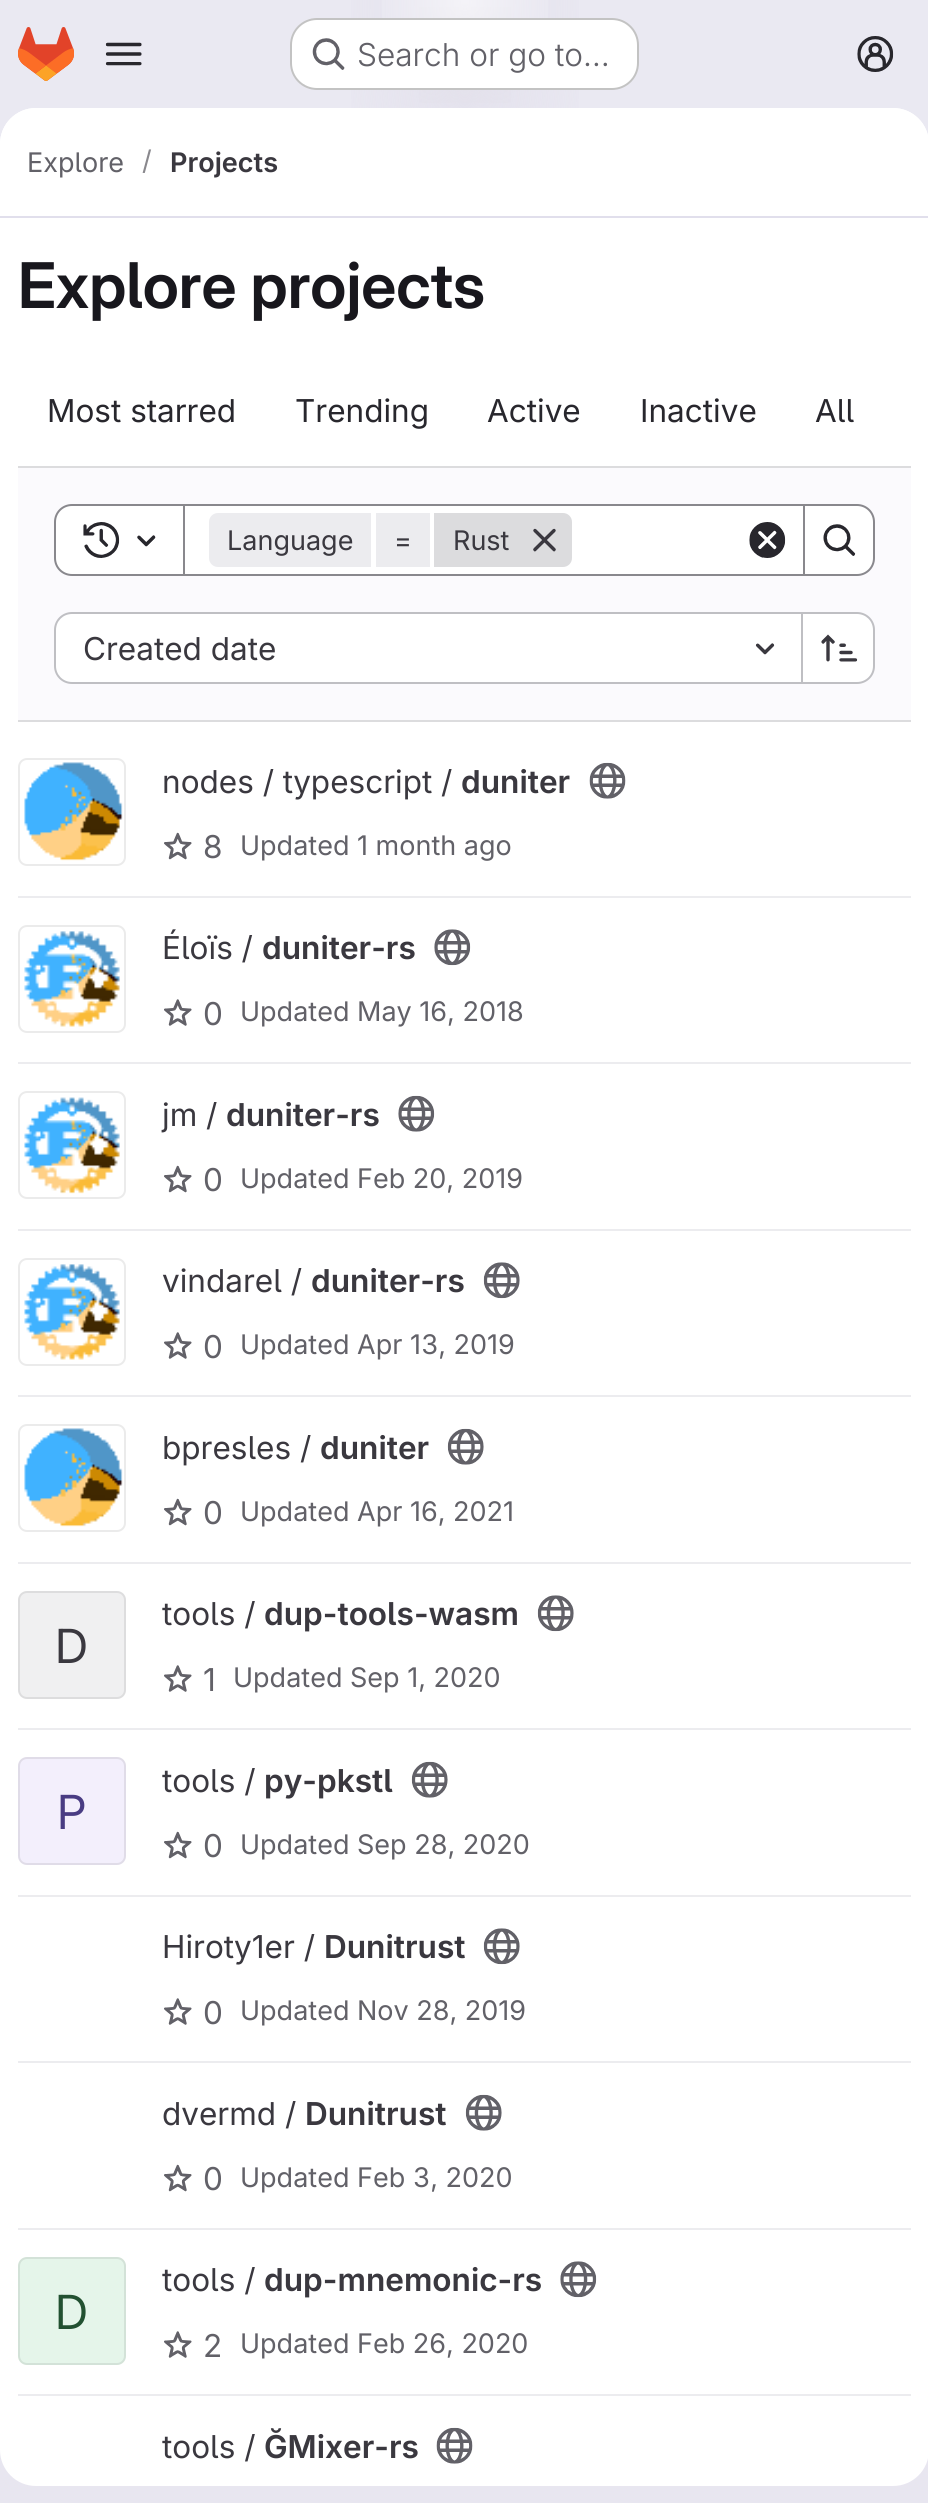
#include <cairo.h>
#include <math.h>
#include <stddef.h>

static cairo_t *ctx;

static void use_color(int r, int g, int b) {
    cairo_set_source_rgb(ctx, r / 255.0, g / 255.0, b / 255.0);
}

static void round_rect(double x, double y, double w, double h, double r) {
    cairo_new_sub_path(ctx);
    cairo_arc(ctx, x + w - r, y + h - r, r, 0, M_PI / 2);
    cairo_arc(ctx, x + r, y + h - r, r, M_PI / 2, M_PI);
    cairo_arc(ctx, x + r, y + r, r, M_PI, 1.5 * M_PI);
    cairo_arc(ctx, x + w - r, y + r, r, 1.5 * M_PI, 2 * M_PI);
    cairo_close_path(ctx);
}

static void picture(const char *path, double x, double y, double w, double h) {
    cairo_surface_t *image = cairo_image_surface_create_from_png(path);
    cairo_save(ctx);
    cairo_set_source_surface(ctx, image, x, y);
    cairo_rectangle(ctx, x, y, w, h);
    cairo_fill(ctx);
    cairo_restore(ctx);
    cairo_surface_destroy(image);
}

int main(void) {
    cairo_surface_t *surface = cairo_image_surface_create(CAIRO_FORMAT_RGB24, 928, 2503);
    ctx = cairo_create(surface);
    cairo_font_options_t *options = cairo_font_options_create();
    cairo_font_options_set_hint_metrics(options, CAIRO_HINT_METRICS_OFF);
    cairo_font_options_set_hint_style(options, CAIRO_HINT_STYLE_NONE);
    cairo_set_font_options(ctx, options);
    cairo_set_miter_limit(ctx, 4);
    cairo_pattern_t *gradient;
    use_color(255, 255, 255);
    cairo_paint(ctx);
    gradient = cairo_pattern_create_linear(693, 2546, 236, -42);
    cairo_pattern_add_color_stop_rgba(gradient, 0, 0.91, 0.902, 0.941, 1);
    cairo_pattern_add_color_stop_rgba(gradient, 0.7, 0.918, 0.914, 0.949, 1);
    cairo_set_source(ctx, gradient);
    cairo_pattern_destroy(gradient);
    cairo_rectangle(ctx, 0, 0, 928, 2503);
    cairo_fill(ctx);
    gradient = cairo_pattern_create_radial(0, 0, 0, 0, 0, 1);
    cairo_pattern_set_matrix(gradient, &(cairo_matrix_t){1.0 / 465, 0, 0, 1.0 / 2504, -1.0 * 465 / 465, -1.0 * 0 / 2504});
    cairo_pattern_add_color_stop_rgba(gradient, 0, 0.894, 0.886, 0.929, 1);
    cairo_pattern_add_color_stop_rgba(gradient, 0.34, 0.894, 0.886, 0.929, 0);
    cairo_set_source(ctx, gradient);
    cairo_pattern_destroy(gradient);
    cairo_rectangle(ctx, 351, 0, 228, 108);
    cairo_fill(ctx);
    gradient = cairo_pattern_create_radial(0, 0, 0, 0, 0, 1);
    cairo_pattern_set_matrix(gradient, &(cairo_matrix_t){1.0 / 465, 0, 0, 1.0 / 2504, -1.0 * 465 / 465, -1.0 * 0 / 2504});
    cairo_pattern_add_color_stop_rgba(gradient, 0, 0.894, 0.886, 0.925, 1);
    cairo_pattern_add_color_stop_rgba(gradient, 0.24, 0.894, 0.886, 0.925, 0);
    cairo_set_source(ctx, gradient);
    cairo_pattern_destroy(gradient);
    cairo_rectangle(ctx, 419, 7, 92, 96);
    cairo_fill(ctx);
    gradient = cairo_pattern_create_radial(465, 0, 0, 465, 0, 2547);
    cairo_pattern_add_color_stop_rgba(gradient, 0, 1, 1, 1, 0.6);
    cairo_pattern_add_color_stop_rgba(gradient, 0.04, 1, 1, 1, 0);
    cairo_set_source(ctx, gradient);
    cairo_pattern_destroy(gradient);
    cairo_rectangle(ctx, 382, 0, 166, 87);
    cairo_fill(ctx);
    picture("img1.png", 18, 27, 56, 54);
    picture("img2.png", 105, 42, 37, 24);
    use_color(255, 255, 255);
    round_rect(290, 18, 349, 72, 27);
    cairo_fill(ctx);
    round_rect(291, 19, 347, 70, 26);
    cairo_set_source_rgba(ctx, 0.02, 0.02, 0.024, 0.24);
    cairo_stroke(ctx);
    picture("img3.png", 312, 38, 33, 32);
    cairo_select_font_face(ctx, "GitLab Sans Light", CAIRO_FONT_SLANT_NORMAL, CAIRO_FONT_WEIGHT_NORMAL);
    cairo_set_font_size(ctx, 31.5);
    use_color(98, 97, 104);
    cairo_move_to(ctx, 357, 66);
    cairo_show_text(ctx, "Search or go to…");
    picture("img4.png", 857, 36, 37, 36);
    use_color(255, 255, 255);
    round_rect(0, 108, 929, 2378, 36);
    cairo_fill(ctx);
    cairo_new_path(ctx);
    cairo_move_to(ctx, 36, 108);
    cairo_line_to(ctx, 893, 108);
    cairo_curve_to(ctx, 913, 108, 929, 124, 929, 144);
    cairo_line_to(ctx, 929, 218);
    cairo_line_to(ctx, 0, 218);
    cairo_line_to(ctx, 0, 144);
    cairo_curve_to(ctx, 0, 124, 16, 108, 36, 108);
    cairo_close_path(ctx);
    cairo_fill(ctx);
    use_color(225, 223, 236);
    cairo_rectangle(ctx, 0, 216, 928, 2);
    cairo_fill(ctx);
    cairo_select_font_face(ctx, "GitLab Sans", CAIRO_FONT_SLANT_NORMAL, CAIRO_FONT_WEIGHT_NORMAL);
    cairo_set_font_size(ctx, 27);
    use_color(98, 97, 104);
    cairo_move_to(ctx, 27, 172);
    cairo_show_text(ctx, "Explore");
    use_color(137, 136, 141);
    cairo_move_to(ctx, 142, 170);
    cairo_show_text(ctx, "/");
    cairo_select_font_face(ctx, "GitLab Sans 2 SemiBold", CAIRO_FONT_SLANT_NORMAL, CAIRO_FONT_WEIGHT_NORMAL);
    use_color(58, 56, 63);
    cairo_move_to(ctx, 170, 172);
    cairo_show_text(ctx, "Projects");
    cairo_select_font_face(ctx, "GitLab Sans SemiBold", CAIRO_FONT_SLANT_NORMAL, CAIRO_FONT_WEIGHT_NORMAL);
    cairo_set_font_size(ctx, 63);
    use_color(24, 23, 29);
    cairo_move_to(ctx, 18, 308);
    cairo_show_text(ctx, "Explore projects");
    cairo_select_font_face(ctx, "GitLab Sans", CAIRO_FONT_SLANT_NORMAL, CAIRO_FONT_WEIGHT_NORMAL);
    cairo_set_font_size(ctx, 31.5);
    use_color(40, 39, 45);
    cairo_move_to(ctx, 47, 422);
    cairo_show_text(ctx, "Most starred");
    cairo_move_to(ctx, 295, 422);
    cairo_show_text(ctx, "Trending");
    cairo_move_to(ctx, 487, 422);
    cairo_show_text(ctx, "Active");
    cairo_move_to(ctx, 640, 422);
    cairo_show_text(ctx, "Inactive");
    cairo_move_to(ctx, 815, 422);
    cairo_show_text(ctx, "All");
    use_color(251, 250, 253);
    cairo_rectangle(ctx, 18, 468, 893, 252);
    cairo_fill(ctx);
    use_color(220, 220, 222);
    cairo_rectangle(ctx, 18, 466, 893, 2);
    cairo_fill(ctx);
    cairo_rectangle(ctx, 18, 720, 893, 2);
    cairo_fill(ctx);
    use_color(255, 255, 255);
    cairo_rectangle(ctx, 185, 506, 618, 68);
    cairo_fill(ctx);
    cairo_rectangle(ctx, 183, 505, 622, 70);
    use_color(137, 136, 141);
    cairo_stroke(ctx);
    use_color(255, 255, 255);
    cairo_new_path(ctx);
    cairo_move_to(ctx, 72, 505);
    cairo_line_to(ctx, 184, 505);
    cairo_line_to(ctx, 184, 575);
    cairo_line_to(ctx, 72, 575);
    cairo_curve_to(ctx, 62.5, 575, 55, 567.5, 55, 558);
    cairo_line_to(ctx, 55, 522);
    cairo_curve_to(ctx, 55, 512.5, 62.5, 505, 72, 505);
    cairo_close_path(ctx);
    cairo_fill_preserve(ctx);
    use_color(137, 136, 141);
    cairo_stroke(ctx);
    picture("img5.png", 83, 522, 37, 36);
    picture("img6.png", 137, 535, 19, 12);
    use_color(236, 236, 239);
    cairo_new_path(ctx);
    cairo_move_to(ctx, 218, 513);
    cairo_line_to(ctx, 371, 513);
    cairo_line_to(ctx, 371, 567);
    cairo_line_to(ctx, 218, 567);
    cairo_curve_to(ctx, 213, 567, 209, 563, 209, 558);
    cairo_line_to(ctx, 209, 522);
    cairo_curve_to(ctx, 209, 517, 213, 513, 218, 513);
    cairo_close_path(ctx);
    cairo_fill(ctx);
    cairo_set_font_size(ctx, 27);
    use_color(58, 56, 63);
    cairo_move_to(ctx, 227, 550);
    cairo_show_text(ctx, "Language");
    use_color(236, 236, 239);
    cairo_rectangle(ctx, 376, 513, 54, 54);
    cairo_fill(ctx);
    use_color(58, 56, 63);
    cairo_move_to(ctx, 394, 550);
    cairo_show_text(ctx, "=");
    use_color(220, 220, 222);
    cairo_new_path(ctx);
    cairo_move_to(ctx, 434, 513);
    cairo_line_to(ctx, 563, 513);
    cairo_curve_to(ctx, 568, 513, 572, 517, 572, 522);
    cairo_line_to(ctx, 572, 558);
    cairo_curve_to(ctx, 572, 563, 568, 567, 563, 567);
    cairo_line_to(ctx, 434, 567);
    cairo_close_path(ctx);
    cairo_fill(ctx);
    use_color(58, 56, 63);
    cairo_move_to(ctx, 453, 550);
    cairo_show_text(ctx, "Rust");
    picture("img7.png", 533, 528, 23, 24);
    picture("img8.png", 749, 522, 37, 36);
    use_color(255, 255, 255);
    cairo_new_path(ctx);
    cairo_move_to(ctx, 804, 505);
    cairo_line_to(ctx, 857, 505);
    cairo_curve_to(ctx, 866.5, 505, 874, 512.5, 874, 522);
    cairo_line_to(ctx, 874, 558);
    cairo_curve_to(ctx, 874, 567.5, 866.5, 575, 857, 575);
    cairo_line_to(ctx, 804, 575);
    cairo_close_path(ctx);
    cairo_fill_preserve(ctx);
    use_color(137, 136, 141);
    cairo_stroke(ctx);
    picture("img9.png", 823, 524, 33, 32);
    use_color(255, 255, 255);
    cairo_new_path(ctx);
    cairo_move_to(ctx, 72, 614);
    cairo_line_to(ctx, 801, 614);
    cairo_line_to(ctx, 801, 682);
    cairo_line_to(ctx, 72, 682);
    cairo_curve_to(ctx, 63, 682, 56, 675, 56, 666);
    cairo_line_to(ctx, 56, 630);
    cairo_curve_to(ctx, 56, 621, 63, 614, 72, 614);
    cairo_close_path(ctx);
    cairo_fill(ctx);
    use_color(191, 191, 195);
    cairo_set_fill_rule(ctx, CAIRO_FILL_RULE_EVEN_ODD);
    cairo_new_path(ctx);
    cairo_move_to(ctx, 72, 612);
    cairo_line_to(ctx, 801, 612);
    cairo_line_to(ctx, 801, 684);
    cairo_line_to(ctx, 72, 684);
    cairo_curve_to(ctx, 62, 684, 54, 676, 54, 666);
    cairo_line_to(ctx, 54, 630);
    cairo_curve_to(ctx, 54, 620, 62, 612, 72, 612);
    cairo_close_path(ctx);
    cairo_move_to(ctx, 72, 614);
    cairo_line_to(ctx, 801, 614);
    cairo_line_to(ctx, 801, 682);
    cairo_line_to(ctx, 72, 682);
    cairo_curve_to(ctx, 63, 682, 56, 675, 56, 666);
    cairo_line_to(ctx, 56, 630);
    cairo_curve_to(ctx, 56, 621, 63, 614, 72, 614);
    cairo_close_path(ctx);
    cairo_fill(ctx);
    cairo_set_font_size(ctx, 31.5);
    use_color(58, 56, 63);
    cairo_move_to(ctx, 83, 660);
    cairo_show_text(ctx, "Created date");
    picture("img10.png", 755, 643, 20, 12);
    use_color(255, 255, 255);
    cairo_new_path(ctx);
    cairo_move_to(ctx, 803, 614);
    cairo_line_to(ctx, 857, 614);
    cairo_curve_to(ctx, 866, 614, 873, 621, 873, 630);
    cairo_line_to(ctx, 873, 666);
    cairo_curve_to(ctx, 873, 675, 866, 682, 857, 682);
    cairo_line_to(ctx, 803, 682);
    cairo_close_path(ctx);
    cairo_fill(ctx);
    use_color(191, 191, 195);
    cairo_new_path(ctx);
    cairo_move_to(ctx, 803, 612);
    cairo_line_to(ctx, 857, 612);
    cairo_curve_to(ctx, 867, 612, 875, 620, 875, 630);
    cairo_line_to(ctx, 875, 666);
    cairo_curve_to(ctx, 875, 676, 867, 684, 857, 684);
    cairo_line_to(ctx, 803, 684);
    cairo_close_path(ctx);
    cairo_move_to(ctx, 803, 614);
    cairo_line_to(ctx, 857, 614);
    cairo_curve_to(ctx, 866, 614, 873, 621, 873, 630);
    cairo_line_to(ctx, 873, 666);
    cairo_curve_to(ctx, 873, 675, 866, 682, 857, 682);
    cairo_line_to(ctx, 803, 682);
    cairo_close_path(ctx);
    cairo_fill(ctx);
    cairo_rectangle(ctx, 801, 612, 2, 72);
    cairo_fill(ctx);
    picture("img11.png", 821, 634, 37, 28);
    use_color(236, 236, 239);
    cairo_rectangle(ctx, 18, 896, 893, 2);
    cairo_fill(ctx);
    picture("img12.png", 24, 762, 99, 99);
    round_rect(19, 759, 106, 106, 8);
    use_color(235, 235, 235);
    cairo_stroke(ctx);
    use_color(58, 56, 63);
    cairo_move_to(ctx, 162, 793);
    cairo_show_text(ctx, "nodes / typescript /");
    cairo_select_font_face(ctx, "GitLab Sans 2 SemiBold", CAIRO_FONT_SLANT_NORMAL, CAIRO_FONT_WEIGHT_NORMAL);
    cairo_move_to(ctx, 461, 793);
    cairo_show_text(ctx, "duniter");
    picture("img13.png", 589, 762, 37, 37);
    picture("img14.png", 164, 832, 28, 28);
    cairo_select_font_face(ctx, "GitLab Sans", CAIRO_FONT_SLANT_NORMAL, CAIRO_FONT_WEIGHT_NORMAL);
    use_color(98, 97, 104);
    cairo_move_to(ctx, 203, 858);
    cairo_show_text(ctx, "8");
    cairo_set_font_size(ctx, 27);
    cairo_move_to(ctx, 240, 855);
    cairo_show_text(ctx, "Updated 1 month ago");
    use_color(236, 236, 239);
    cairo_rectangle(ctx, 18, 1062, 893, 2);
    cairo_fill(ctx);
    picture("img15.png", 24, 931, 96, 96);
    round_rect(19, 926, 106, 106, 8);
    use_color(235, 235, 235);
    cairo_stroke(ctx);
    cairo_set_font_size(ctx, 31.5);
    use_color(58, 56, 63);
    cairo_move_to(ctx, 162, 959);
    cairo_show_text(ctx, "Éloïs /");
    cairo_select_font_face(ctx, "GitLab Sans 2 SemiBold", CAIRO_FONT_SLANT_NORMAL, CAIRO_FONT_WEIGHT_NORMAL);
    cairo_move_to(ctx, 262, 959);
    cairo_show_text(ctx, "duniter-rs");
    picture("img16.png", 434, 929, 37, 37);
    picture("img17.png", 164, 999, 28, 27);
    cairo_select_font_face(ctx, "GitLab Sans", CAIRO_FONT_SLANT_NORMAL, CAIRO_FONT_WEIGHT_NORMAL);
    use_color(98, 97, 104);
    cairo_move_to(ctx, 203, 1025);
    cairo_show_text(ctx, "0");
    cairo_set_font_size(ctx, 27);
    cairo_move_to(ctx, 240, 1021);
    cairo_show_text(ctx, "Updated May 16, 2018");
    use_color(236, 236, 239);
    cairo_rectangle(ctx, 18, 1229, 893, 2);
    cairo_fill(ctx);
    picture("img18.png", 24, 1097, 96, 97);
    round_rect(19, 1092, 106, 106, 8);
    use_color(235, 235, 235);
    cairo_stroke(ctx);
    cairo_set_font_size(ctx, 31.5);
    use_color(58, 56, 63);
    cairo_move_to(ctx, 162, 1126);
    cairo_show_text(ctx, "jm /");
    cairo_select_font_face(ctx, "GitLab Sans 2 SemiBold", CAIRO_FONT_SLANT_NORMAL, CAIRO_FONT_WEIGHT_NORMAL);
    cairo_move_to(ctx, 226, 1126);
    cairo_show_text(ctx, "duniter-rs");
    picture("img19.png", 398, 1095, 37, 37);
    picture("img14.png", 164, 1165, 28, 28);
    cairo_select_font_face(ctx, "GitLab Sans", CAIRO_FONT_SLANT_NORMAL, CAIRO_FONT_WEIGHT_NORMAL);
    use_color(98, 97, 104);
    cairo_move_to(ctx, 203, 1191);
    cairo_show_text(ctx, "0");
    cairo_set_font_size(ctx, 27);
    cairo_move_to(ctx, 240, 1188);
    cairo_show_text(ctx, "Updated Feb 20, 2019");
    use_color(236, 236, 239);
    cairo_rectangle(ctx, 18, 1395, 893, 2);
    cairo_fill(ctx);
    picture("img15.png", 24, 1264, 96, 96);
    round_rect(19, 1259, 106, 106, 8);
    use_color(235, 235, 235);
    cairo_stroke(ctx);
    cairo_set_font_size(ctx, 31.5);
    use_color(58, 56, 63);
    cairo_move_to(ctx, 162, 1292);
    cairo_show_text(ctx, "vindarel /");
    cairo_select_font_face(ctx, "GitLab Sans 2 SemiBold", CAIRO_FONT_SLANT_NORMAL, CAIRO_FONT_WEIGHT_NORMAL);
    cairo_move_to(ctx, 311, 1292);
    cairo_show_text(ctx, "duniter-rs");
    picture("img20.png", 483, 1262, 37, 37);
    picture("img21.png", 164, 1332, 28, 27);
    cairo_select_font_face(ctx, "GitLab Sans", CAIRO_FONT_SLANT_NORMAL, CAIRO_FONT_WEIGHT_NORMAL);
    use_color(98, 97, 104);
    cairo_move_to(ctx, 203, 1358);
    cairo_show_text(ctx, "0");
    cairo_set_font_size(ctx, 27);
    cairo_move_to(ctx, 240, 1354);
    cairo_show_text(ctx, "Updated Apr 13, 2019");
    use_color(236, 236, 239);
    cairo_rectangle(ctx, 18, 1562, 893, 2);
    cairo_fill(ctx);
    picture("img12.png", 24, 1428, 99, 99);
    round_rect(19, 1425, 106, 106, 8);
    use_color(235, 235, 235);
    cairo_stroke(ctx);
    cairo_set_font_size(ctx, 31.5);
    use_color(58, 56, 63);
    cairo_move_to(ctx, 162, 1459);
    cairo_show_text(ctx, "bpresles /");
    cairo_select_font_face(ctx, "GitLab Sans 2 SemiBold", CAIRO_FONT_SLANT_NORMAL, CAIRO_FONT_WEIGHT_NORMAL);
    cairo_move_to(ctx, 320, 1459);
    cairo_show_text(ctx, "duniter");
    picture("img22.png", 447, 1428, 37, 37);
    picture("img14.png", 164, 1498, 28, 28);
    cairo_select_font_face(ctx, "GitLab Sans", CAIRO_FONT_SLANT_NORMAL, CAIRO_FONT_WEIGHT_NORMAL);
    use_color(98, 97, 104);
    cairo_move_to(ctx, 203, 1524);
    cairo_show_text(ctx, "0");
    cairo_set_font_size(ctx, 27);
    cairo_move_to(ctx, 240, 1521);
    cairo_show_text(ctx, "Updated Apr 16, 2021");
    use_color(236, 236, 239);
    cairo_rectangle(ctx, 18, 1728, 893, 2);
    cairo_fill(ctx);
    use_color(240, 240, 241);
    round_rect(18, 1591, 108, 108, 9);
    cairo_fill(ctx);
    round_rect(19, 1592, 106, 106, 8);
    cairo_set_source_rgba(ctx, 0.02, 0.02, 0.024, 0.08);
    cairo_stroke(ctx);
    cairo_select_font_face(ctx, "GitLab Sans 2", CAIRO_FONT_SLANT_NORMAL, CAIRO_FONT_WEIGHT_NORMAL);
    cairo_set_font_size(ctx, 47);
    use_color(58, 56, 63);
    cairo_move_to(ctx, 55, 1663);
    cairo_show_text(ctx, "D");
    cairo_select_font_face(ctx, "GitLab Sans", CAIRO_FONT_SLANT_NORMAL, CAIRO_FONT_WEIGHT_NORMAL);
    cairo_set_font_size(ctx, 31.5);
    cairo_move_to(ctx, 162, 1625);
    cairo_show_text(ctx, "tools /");
    cairo_select_font_face(ctx, "GitLab Sans 2 SemiBold", CAIRO_FONT_SLANT_NORMAL, CAIRO_FONT_WEIGHT_NORMAL);
    cairo_move_to(ctx, 264, 1625);
    cairo_show_text(ctx, "dup-tools-wasm");
    picture("img23.png", 537, 1595, 37, 37);
    picture("img21.png", 164, 1665, 28, 27);
    cairo_select_font_face(ctx, "GitLab Sans", CAIRO_FONT_SLANT_NORMAL, CAIRO_FONT_WEIGHT_NORMAL);
    use_color(98, 97, 104);
    cairo_move_to(ctx, 203, 1691);
    cairo_show_text(ctx, "1");
    cairo_set_font_size(ctx, 27);
    cairo_move_to(ctx, 233, 1687);
    cairo_show_text(ctx, "Updated Sep 1, 2020");
    use_color(236, 236, 239);
    cairo_rectangle(ctx, 18, 1895, 893, 2);
    cairo_fill(ctx);
    use_color(243, 239, 252);
    round_rect(18, 1757, 108, 108, 9);
    cairo_fill(ctx);
    round_rect(19, 1758, 106, 106, 8);
    cairo_set_source_rgba(ctx, 0.02, 0.02, 0.024, 0.08);
    cairo_stroke(ctx);
    cairo_select_font_face(ctx, "GitLab Sans 2", CAIRO_FONT_SLANT_NORMAL, CAIRO_FONT_WEIGHT_NORMAL);
    cairo_set_font_size(ctx, 47);
    use_color(73, 60, 131);
    cairo_move_to(ctx, 57, 1829);
    cairo_show_text(ctx, "P");
    cairo_select_font_face(ctx, "GitLab Sans", CAIRO_FONT_SLANT_NORMAL, CAIRO_FONT_WEIGHT_NORMAL);
    cairo_set_font_size(ctx, 31.5);
    use_color(58, 56, 63);
    cairo_move_to(ctx, 162, 1792);
    cairo_show_text(ctx, "tools /");
    cairo_select_font_face(ctx, "GitLab Sans 2 SemiBold", CAIRO_FONT_SLANT_NORMAL, CAIRO_FONT_WEIGHT_NORMAL);
    cairo_move_to(ctx, 264, 1792);
    cairo_show_text(ctx, "py-pkstl");
    picture("img24.png", 411, 1761, 37, 37);
    picture("img14.png", 164, 1831, 28, 28);
    cairo_select_font_face(ctx, "GitLab Sans", CAIRO_FONT_SLANT_NORMAL, CAIRO_FONT_WEIGHT_NORMAL);
    use_color(98, 97, 104);
    cairo_move_to(ctx, 203, 1857);
    cairo_show_text(ctx, "0");
    cairo_set_font_size(ctx, 27);
    cairo_move_to(ctx, 240, 1854);
    cairo_show_text(ctx, "Updated Sep 28, 2020");
    use_color(236, 236, 239);
    cairo_rectangle(ctx, 18, 2061, 893, 2);
    cairo_fill(ctx);
    cairo_set_font_size(ctx, 31.5);
    use_color(58, 56, 63);
    cairo_move_to(ctx, 162, 1958);
    cairo_show_text(ctx, "Hiroty1er /");
    cairo_select_font_face(ctx, "GitLab Sans 2 SemiBold", CAIRO_FONT_SLANT_NORMAL, CAIRO_FONT_WEIGHT_NORMAL);
    cairo_move_to(ctx, 324, 1958);
    cairo_show_text(ctx, "Dunitrust");
    picture("img25.png", 483, 1928, 37, 37);
    picture("img21.png", 164, 1998, 28, 27);
    cairo_select_font_face(ctx, "GitLab Sans", CAIRO_FONT_SLANT_NORMAL, CAIRO_FONT_WEIGHT_NORMAL);
    use_color(98, 97, 104);
    cairo_move_to(ctx, 203, 2024);
    cairo_show_text(ctx, "0");
    cairo_set_font_size(ctx, 27);
    cairo_move_to(ctx, 240, 2020);
    cairo_show_text(ctx, "Updated Nov 28, 2019");
    use_color(236, 236, 239);
    cairo_rectangle(ctx, 18, 2228, 893, 2);
    cairo_fill(ctx);
    cairo_set_font_size(ctx, 31.5);
    use_color(58, 56, 63);
    cairo_move_to(ctx, 162, 2125);
    cairo_show_text(ctx, "dvermd /");
    cairo_select_font_face(ctx, "GitLab Sans 2 SemiBold", CAIRO_FONT_SLANT_NORMAL, CAIRO_FONT_WEIGHT_NORMAL);
    cairo_move_to(ctx, 305, 2125);
    cairo_show_text(ctx, "Dunitrust");
    picture("img22.png", 465, 2094, 37, 37);
    picture("img14.png", 164, 2164, 28, 28);
    cairo_select_font_face(ctx, "GitLab Sans", CAIRO_FONT_SLANT_NORMAL, CAIRO_FONT_WEIGHT_NORMAL);
    use_color(98, 97, 104);
    cairo_move_to(ctx, 203, 2190);
    cairo_show_text(ctx, "0");
    cairo_set_font_size(ctx, 27);
    cairo_move_to(ctx, 240, 2187);
    cairo_show_text(ctx, "Updated Feb 3, 2020");
    use_color(236, 236, 239);
    cairo_rectangle(ctx, 18, 2394, 893, 2);
    cairo_fill(ctx);
    use_color(229, 245, 234);
    round_rect(18, 2257, 108, 108, 9);
    cairo_fill(ctx);
    round_rect(19, 2258, 106, 106, 8);
    cairo_set_source_rgba(ctx, 0.02, 0.02, 0.024, 0.08);
    cairo_stroke(ctx);
    cairo_select_font_face(ctx, "GitLab Sans 2", CAIRO_FONT_SLANT_NORMAL, CAIRO_FONT_WEIGHT_NORMAL);
    cairo_set_font_size(ctx, 47);
    use_color(34, 81, 49);
    cairo_move_to(ctx, 55, 2329);
    cairo_show_text(ctx, "D");
    cairo_select_font_face(ctx, "GitLab Sans", CAIRO_FONT_SLANT_NORMAL, CAIRO_FONT_WEIGHT_NORMAL);
    cairo_set_font_size(ctx, 31.5);
    use_color(58, 56, 63);
    cairo_move_to(ctx, 162, 2291);
    cairo_show_text(ctx, "tools /");
    cairo_select_font_face(ctx, "GitLab Sans 2 SemiBold", CAIRO_FONT_SLANT_NORMAL, CAIRO_FONT_WEIGHT_NORMAL);
    cairo_move_to(ctx, 264, 2291);
    cairo_show_text(ctx, "dup-mnemonic-rs");
    picture("img26.png", 560, 2261, 37, 37);
    picture("img21.png", 164, 2331, 28, 27);
    cairo_select_font_face(ctx, "GitLab Sans", CAIRO_FONT_SLANT_NORMAL, CAIRO_FONT_WEIGHT_NORMAL);
    use_color(98, 97, 104);
    cairo_move_to(ctx, 203, 2357);
    cairo_show_text(ctx, "2");
    cairo_set_font_size(ctx, 27);
    cairo_move_to(ctx, 240, 2353);
    cairo_show_text(ctx, "Updated Feb 26, 2020");
    cairo_set_font_size(ctx, 31.5);
    use_color(58, 56, 63);
    cairo_move_to(ctx, 162, 2458);
    cairo_show_text(ctx, "tools /");
    cairo_select_font_face(ctx, "GitLab Sans 2 SemiBold", CAIRO_FONT_SLANT_NORMAL, CAIRO_FONT_WEIGHT_NORMAL);
    cairo_move_to(ctx, 264, 2458);
    cairo_show_text(ctx, "ĞMixer-rs");
    picture("img27.png", 436, 2427, 37, 37);
    cairo_surface_write_to_png(surface, "result.png");
    cairo_font_options_destroy(options);
    cairo_destroy(ctx);
    cairo_surface_destroy(surface);
    return 0;
}
